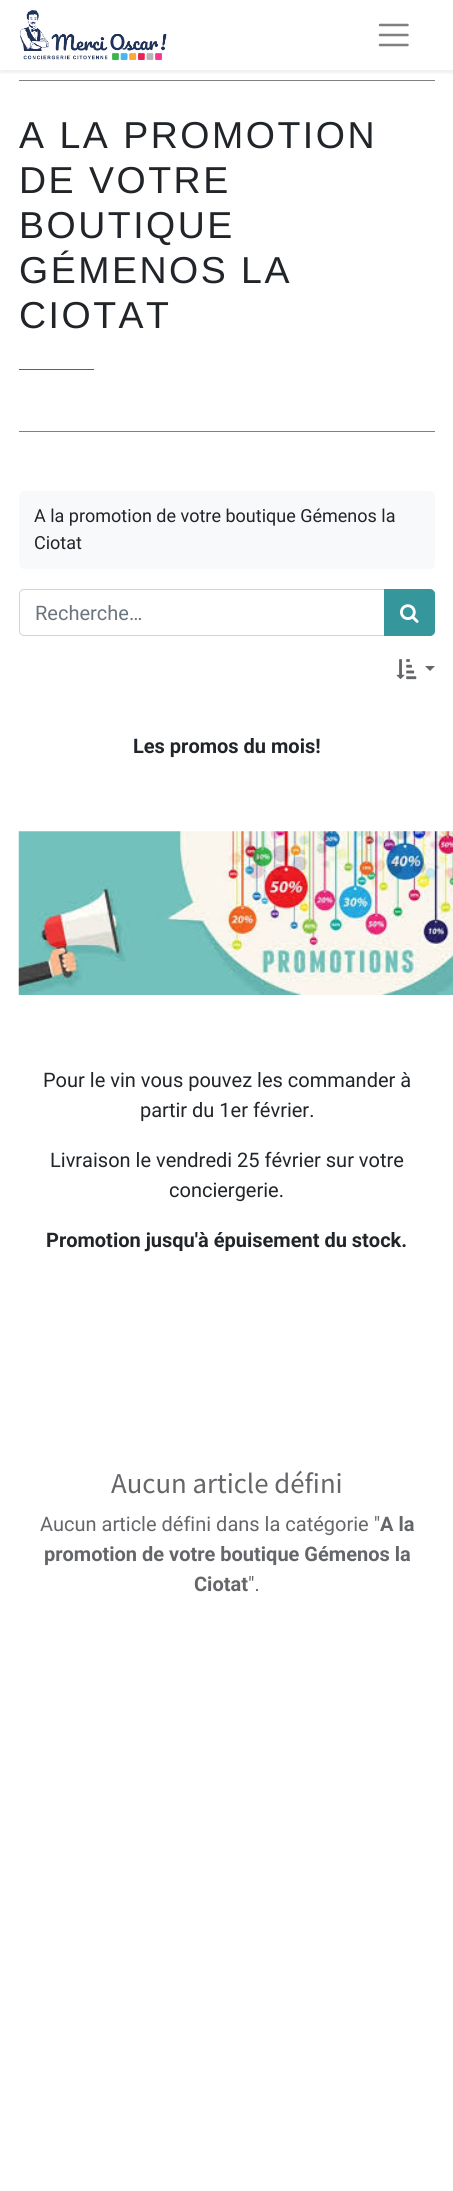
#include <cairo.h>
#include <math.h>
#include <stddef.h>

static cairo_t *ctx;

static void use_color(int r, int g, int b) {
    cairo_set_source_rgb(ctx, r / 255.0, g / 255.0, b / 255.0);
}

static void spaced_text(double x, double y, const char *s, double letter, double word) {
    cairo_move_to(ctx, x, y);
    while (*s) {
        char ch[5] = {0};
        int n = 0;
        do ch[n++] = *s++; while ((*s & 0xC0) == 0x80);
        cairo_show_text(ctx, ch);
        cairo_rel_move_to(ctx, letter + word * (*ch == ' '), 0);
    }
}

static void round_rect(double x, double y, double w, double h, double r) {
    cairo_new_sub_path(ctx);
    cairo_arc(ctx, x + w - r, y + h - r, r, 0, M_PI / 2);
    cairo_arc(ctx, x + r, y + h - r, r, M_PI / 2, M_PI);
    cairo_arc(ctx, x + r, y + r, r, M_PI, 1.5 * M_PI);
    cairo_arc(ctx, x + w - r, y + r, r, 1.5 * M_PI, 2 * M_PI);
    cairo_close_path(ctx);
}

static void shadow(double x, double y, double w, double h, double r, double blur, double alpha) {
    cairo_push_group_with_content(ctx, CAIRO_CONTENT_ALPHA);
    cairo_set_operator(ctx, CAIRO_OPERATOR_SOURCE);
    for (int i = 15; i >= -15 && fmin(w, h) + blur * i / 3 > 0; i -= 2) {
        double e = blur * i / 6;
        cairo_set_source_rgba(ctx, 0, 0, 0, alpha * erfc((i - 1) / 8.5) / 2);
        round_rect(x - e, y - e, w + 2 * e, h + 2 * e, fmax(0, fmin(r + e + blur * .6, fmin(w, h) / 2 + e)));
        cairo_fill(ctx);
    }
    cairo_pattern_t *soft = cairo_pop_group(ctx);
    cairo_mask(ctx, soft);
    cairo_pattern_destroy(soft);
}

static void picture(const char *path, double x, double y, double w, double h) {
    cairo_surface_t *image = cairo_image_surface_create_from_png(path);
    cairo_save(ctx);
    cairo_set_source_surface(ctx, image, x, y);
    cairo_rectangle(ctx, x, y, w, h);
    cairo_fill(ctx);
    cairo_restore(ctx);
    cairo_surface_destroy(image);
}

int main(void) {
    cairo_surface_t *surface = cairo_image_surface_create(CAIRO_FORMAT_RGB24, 453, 2191);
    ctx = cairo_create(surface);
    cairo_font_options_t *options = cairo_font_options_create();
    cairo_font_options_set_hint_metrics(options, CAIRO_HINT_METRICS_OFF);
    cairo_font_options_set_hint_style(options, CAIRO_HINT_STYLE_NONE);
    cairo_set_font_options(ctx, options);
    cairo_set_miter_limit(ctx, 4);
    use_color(255, 255, 255);
    cairo_paint(ctx);
    use_color(128, 128, 128);
    cairo_rectangle(ctx, 19, 80, 416, 1);
    cairo_fill(ctx);
    cairo_save(ctx);
    cairo_rectangle(ctx, 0, 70, 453, 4);
    cairo_clip(ctx);
    use_color(0, 0, 0);
    shadow(0, 3, 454, 70, 0, 2.5, 0.07);
    cairo_restore(ctx);
    picture("img1.png", 20, 10, 147, 50);
    cairo_new_path(ctx);
    cairo_move_to(ctx, 380, 25);
    cairo_line_to(ctx, 407.5, 25);
    cairo_move_to(ctx, 380, 35);
    cairo_line_to(ctx, 407.5, 35);
    cairo_move_to(ctx, 380, 45);
    cairo_line_to(ctx, 407.5, 45);
    cairo_set_line_width(ctx, 2.5);
    cairo_set_line_cap(ctx, CAIRO_LINE_CAP_ROUND);
    cairo_stroke(ctx);
    cairo_rectangle(ctx, 19, 431, 416, 1);
    cairo_fill(ctx);
    cairo_select_font_face(ctx, "Liberation Sans", CAIRO_FONT_SLANT_NORMAL, CAIRO_FONT_WEIGHT_NORMAL);
    cairo_set_font_size(ctx, 37.5);
    use_color(33, 37, 41);
    spaced_text(19, 148, "A LA PROMOTION", 2.5, 0);
    spaced_text(19, 193, "DE VOTRE", 2.5, 0);
    spaced_text(19, 238, "BOUTIQUE", 2.5, 0);
    spaced_text(19, 283, "GÉMENOS LA", 2.5, 0);
    spaced_text(19, 328, "CIOTAT", 2.5, 0);
    use_color(229, 46, 6);
    cairo_rectangle(ctx, 19, 369, 75, 1);
    cairo_fill(ctx);
    use_color(248, 249, 250);
    round_rect(19, 491, 416, 78, 5);
    cairo_fill(ctx);
    cairo_select_font_face(ctx, "Roboto", CAIRO_FONT_SLANT_NORMAL, CAIRO_FONT_WEIGHT_NORMAL);
    cairo_set_font_size(ctx, 18);
    use_color(33, 37, 41);
    cairo_move_to(ctx, 34, 522);
    cairo_show_text(ctx, "A la promotion de votre boutique Gémenos la");
    cairo_move_to(ctx, 34, 549);
    cairo_show_text(ctx, "Ciotat");
    cairo_new_path(ctx);
    cairo_move_to(ctx, 24, 589.5);
    cairo_line_to(ctx, 384.5, 589.5);
    cairo_line_to(ctx, 384.5, 635.5);
    cairo_line_to(ctx, 24, 635.5);
    cairo_curve_to(ctx, 21.5, 635.5, 19.5, 633.5, 19.5, 631);
    cairo_line_to(ctx, 19.5, 594);
    cairo_curve_to(ctx, 19.5, 591.5, 21.5, 589.5, 24, 589.5);
    cairo_close_path(ctx);
    use_color(206, 212, 218);
    cairo_set_line_width(ctx, 1);
    cairo_set_line_cap(ctx, CAIRO_LINE_CAP_BUTT);
    cairo_stroke(ctx);
    cairo_set_font_size(ctx, 20);
    use_color(108, 117, 125);
    cairo_move_to(ctx, 35, 620);
    cairo_show_text(ctx, "Recherche…");
    use_color(53, 151, 156);
    cairo_new_path(ctx);
    cairo_move_to(ctx, 384.5, 589.5);
    cairo_line_to(ctx, 430, 589.5);
    cairo_curve_to(ctx, 432.5, 589.5, 434.5, 591.5, 434.5, 594);
    cairo_line_to(ctx, 434.5, 631);
    cairo_curve_to(ctx, 434.5, 633.5, 432.5, 635.5, 430, 635.5);
    cairo_line_to(ctx, 384.5, 635.5);
    cairo_close_path(ctx);
    cairo_fill_preserve(ctx);
    cairo_stroke(ctx);
    picture("img2.png", 400, 604, 19, 19);
    picture("img3.png", 396, 659, 21, 21);
    use_color(100, 102, 105);
    cairo_new_path(ctx);
    cairo_move_to(ctx, 425, 666);
    cairo_line_to(ctx, 435, 666);
    cairo_line_to(ctx, 430, 671);
    cairo_close_path(ctx);
    cairo_fill(ctx);
    cairo_select_font_face(ctx, "Roboto", CAIRO_FONT_SLANT_NORMAL, CAIRO_FONT_WEIGHT_BOLD);
    use_color(33, 37, 41);
    cairo_move_to(ctx, 133, 753);
    cairo_show_text(ctx, "Les promos du mois!");
    picture("img4.png", 18, 831, 435, 164);
    cairo_select_font_face(ctx, "Roboto", CAIRO_FONT_SLANT_NORMAL, CAIRO_FONT_WEIGHT_NORMAL);
    cairo_move_to(ctx, 43, 1087);
    cairo_show_text(ctx, "Pour le vin vous pouvez les commander à");
    cairo_move_to(ctx, 140, 1117);
    cairo_show_text(ctx, "partir du 1er février.");
    cairo_move_to(ctx, 50, 1167);
    cairo_show_text(ctx, "Livraison le vendredi 25 février sur votre");
    cairo_move_to(ctx, 169, 1197);
    cairo_show_text(ctx, "conciergerie.");
    cairo_select_font_face(ctx, "Roboto", CAIRO_FONT_SLANT_NORMAL, CAIRO_FONT_WEIGHT_BOLD);
    cairo_move_to(ctx, 46, 1247);
    cairo_show_text(ctx, "Promotion jusqu'à épuisement du stock.");
    cairo_select_font_face(ctx, "Source Sans Pro", CAIRO_FONT_SLANT_NORMAL, CAIRO_FONT_WEIGHT_NORMAL);
    cairo_set_font_size(ctx, 28.75);
    use_color(100, 102, 105);
    cairo_move_to(ctx, 111, 1493);
    cairo_show_text(ctx, "Aucun article défini");
    cairo_select_font_face(ctx, "Roboto", CAIRO_FONT_SLANT_NORMAL, CAIRO_FONT_WEIGHT_NORMAL);
    cairo_set_font_size(ctx, 20);
    cairo_move_to(ctx, 40, 1531);
    cairo_show_text(ctx, "Aucun article défini dans la catégorie \"");
    cairo_select_font_face(ctx, "Roboto", CAIRO_FONT_SLANT_NORMAL, CAIRO_FONT_WEIGHT_BOLD);
    cairo_move_to(ctx, 380, 1531);
    cairo_show_text(ctx, "A la");
    cairo_move_to(ctx, 44, 1561);
    cairo_show_text(ctx, "promotion de votre boutique Gémenos la");
    cairo_move_to(ctx, 194, 1591);
    cairo_show_text(ctx, "Ciotat");
    cairo_select_font_face(ctx, "Roboto", CAIRO_FONT_SLANT_NORMAL, CAIRO_FONT_WEIGHT_NORMAL);
    cairo_move_to(ctx, 248, 1591);
    cairo_show_text(ctx, "\".");
    cairo_surface_write_to_png(surface, "result.png");
    cairo_font_options_destroy(options);
    cairo_destroy(ctx);
    cairo_surface_destroy(surface);
    return 0;
}
